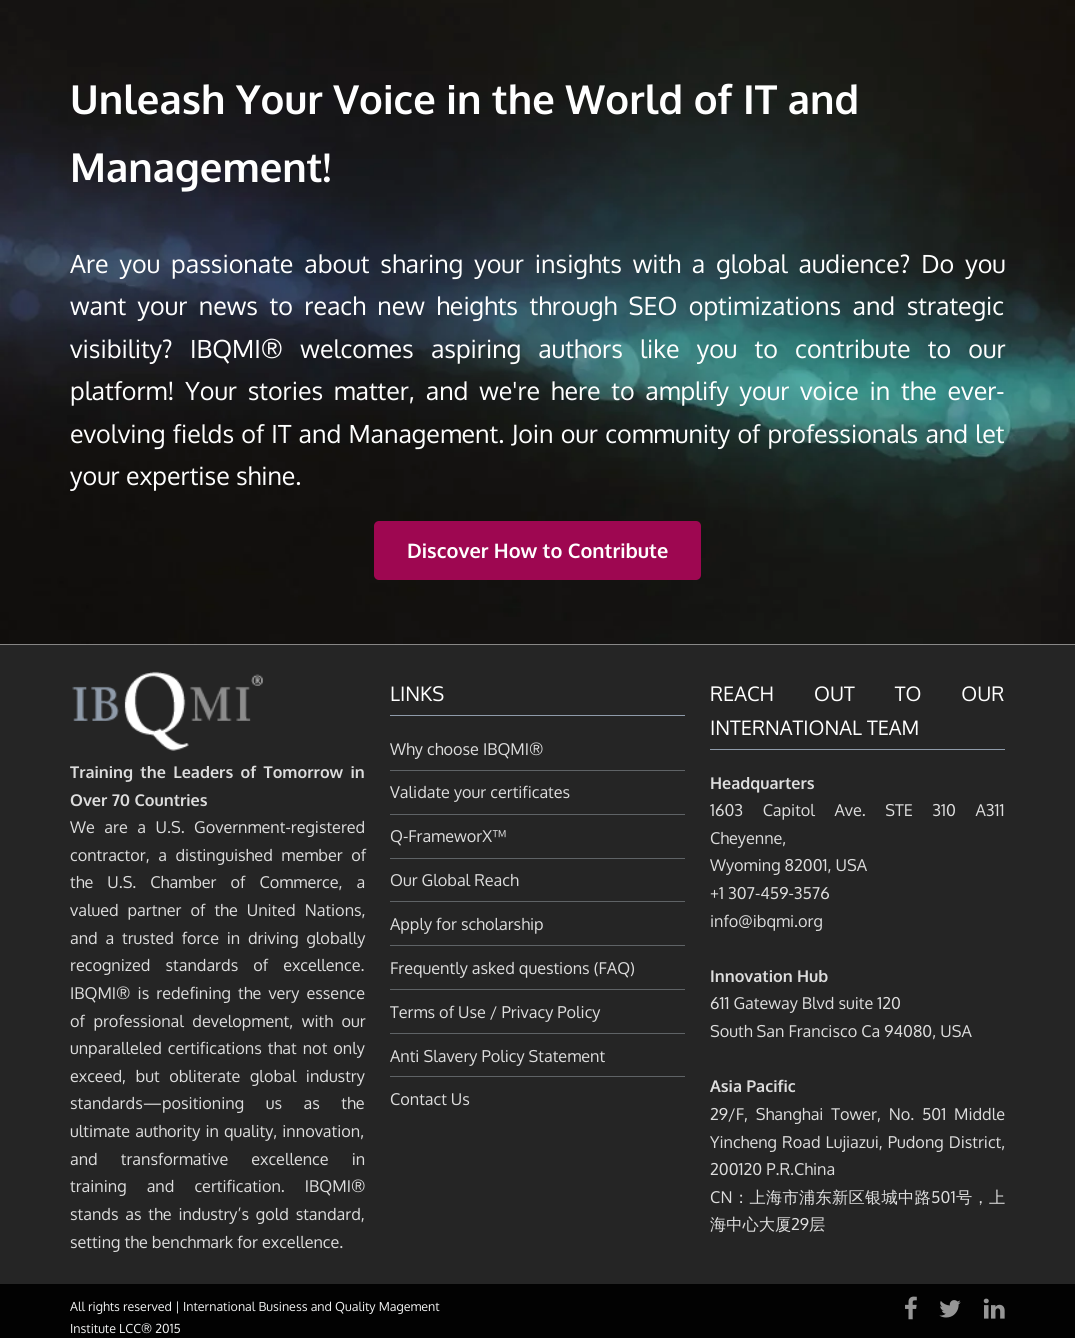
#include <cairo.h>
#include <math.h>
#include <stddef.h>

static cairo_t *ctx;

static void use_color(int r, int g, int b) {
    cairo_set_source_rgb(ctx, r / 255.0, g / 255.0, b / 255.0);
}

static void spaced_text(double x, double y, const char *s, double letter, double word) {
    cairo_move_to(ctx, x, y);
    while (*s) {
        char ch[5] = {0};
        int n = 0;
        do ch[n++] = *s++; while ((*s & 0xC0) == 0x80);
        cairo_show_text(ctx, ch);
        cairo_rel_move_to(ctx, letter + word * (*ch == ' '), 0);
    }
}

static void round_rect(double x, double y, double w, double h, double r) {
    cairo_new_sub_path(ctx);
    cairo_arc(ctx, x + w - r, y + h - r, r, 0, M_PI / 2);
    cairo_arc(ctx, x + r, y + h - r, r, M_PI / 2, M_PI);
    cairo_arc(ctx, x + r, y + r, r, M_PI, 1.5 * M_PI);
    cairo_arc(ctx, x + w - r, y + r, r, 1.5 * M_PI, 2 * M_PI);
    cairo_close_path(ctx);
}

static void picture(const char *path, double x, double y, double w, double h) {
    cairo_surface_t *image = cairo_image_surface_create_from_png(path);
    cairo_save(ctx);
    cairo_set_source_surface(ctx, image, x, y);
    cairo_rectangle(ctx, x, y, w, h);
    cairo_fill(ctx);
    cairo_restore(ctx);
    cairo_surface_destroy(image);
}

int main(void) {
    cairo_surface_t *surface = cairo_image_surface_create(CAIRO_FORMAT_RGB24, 1075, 1338);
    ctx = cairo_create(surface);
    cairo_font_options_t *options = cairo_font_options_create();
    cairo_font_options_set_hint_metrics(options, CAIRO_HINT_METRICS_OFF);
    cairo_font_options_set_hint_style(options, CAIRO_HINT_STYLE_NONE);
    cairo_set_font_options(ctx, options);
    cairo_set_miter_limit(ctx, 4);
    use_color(255, 255, 255);
    cairo_paint(ctx);
    picture("img1.png", 0, 0, 1075, 645);
    cairo_select_font_face(ctx, "Oxygen", CAIRO_FONT_SLANT_NORMAL, CAIRO_FONT_WEIGHT_BOLD);
    cairo_set_font_size(ctx, 40);
    use_color(255, 255, 255);
    cairo_move_to(ctx, 70, 114);
    cairo_show_text(ctx, "Unleash Your Voice in the World of IT and");
    cairo_move_to(ctx, 70, 182);
    cairo_show_text(ctx, "Management!");
    cairo_select_font_face(ctx, "Oxygen", CAIRO_FONT_SLANT_NORMAL, CAIRO_FONT_WEIGHT_NORMAL);
    cairo_set_font_size(ctx, 25);
    spaced_text(70, 273, "Are you passionate about sharing your insights with a global audience? Do you", 0, 4.75);
    spaced_text(70, 315, "want your news to reach new heights through SEO optimizations and strategic", 0, 5.25);
    spaced_text(70, 358, "visibility? IBQMI® welcomes aspiring authors like you to contribute to our", 0, 11);
    spaced_text(70, 400, "platform! Your stories matter, and we're here to amplify your voice in the ever-", 0, 4.5);
    spaced_text(70, 443, "evolving fields of IT and Management. Join our community of professionals and let", 0, 1);
    cairo_move_to(ctx, 70, 485);
    cairo_show_text(ctx, "your expertise shine.");
    use_color(158, 7, 81);
    round_rect(374, 521, 327, 59, 5);
    cairo_fill(ctx);
    cairo_select_font_face(ctx, "Oxygen", CAIRO_FONT_SLANT_NORMAL, CAIRO_FONT_WEIGHT_BOLD);
    cairo_set_font_size(ctx, 20);
    use_color(255, 255, 255);
    cairo_move_to(ctx, 407, 558);
    cairo_show_text(ctx, "Discover How to Contribute");
    use_color(37, 37, 37);
    cairo_rectangle(ctx, 0, 645, 1075, 639);
    cairo_fill(ctx);
    picture("img2.png", 72, 671, 191, 80);
    cairo_set_font_size(ctx, 16.25);
    use_color(221, 221, 221);
    spaced_text(70, 778, "Training the Leaders of Tomorrow in", 0, 3);
    cairo_move_to(ctx, 70, 806);
    cairo_show_text(ctx, "Over 70 Countries");
    cairo_select_font_face(ctx, "Oxygen", CAIRO_FONT_SLANT_NORMAL, CAIRO_FONT_WEIGHT_NORMAL);
    spaced_text(70, 833, "We are a U.S. Government-registered", 0, 5.5);
    spaced_text(70, 861, "contractor, a distinguished member of", 0, 4.5);
    spaced_text(70, 888, "the U.S. Chamber of Commerce, a", 0, 10);
    spaced_text(70, 916, "valued partner of the United Nations,", 0, 5);
    spaced_text(70, 944, "and a trusted force in driving globally", 0, 3.75);
    spaced_text(70, 971, "recognized standards of excellence.", 0, 11);
    spaced_text(70, 999, "IBQMI® is redefining the very essence", 0, 3);
    spaced_text(70, 1027, "of professional development, with our", 0, 4.5);
    spaced_text(70, 1054, "unparalleled certifications that not only", 0, 2);
    spaced_text(70, 1082, "exceed, but obliterate global industry", 0, 5.5);
    spaced_text(70, 1109, "standards—positioning us as the", 0, 17.5);
    spaced_text(70, 1137, "ultimate authority in quality, innovation,", 0, 1);
    spaced_text(70, 1165, "and transformative excellence in", 0, 19);
    spaced_text(70, 1192, "training and certification. IBQMI®", 0, 16);
    spaced_text(70, 1220, "stands as the industry’s gold standard,", 0, 2.75);
    cairo_move_to(ctx, 70, 1248);
    cairo_show_text(ctx, "setting the benchmark for excellence.");
    use_color(143, 155, 170);
    cairo_rectangle(ctx, 390, 715, 295, 1);
    cairo_fill(ctx);
    cairo_set_font_size(ctx, 20);
    use_color(255, 255, 255);
    cairo_move_to(ctx, 390, 701);
    cairo_show_text(ctx, "LINKS");
    use_color(95, 99, 102);
    cairo_rectangle(ctx, 390, 770, 295, 1);
    cairo_fill(ctx);
    cairo_set_font_size(ctx, 16.25);
    use_color(221, 221, 221);
    cairo_move_to(ctx, 390, 755);
    cairo_show_text(ctx, "Why choose IBQMI®");
    use_color(95, 99, 102);
    cairo_rectangle(ctx, 390, 814, 295, 1);
    cairo_fill(ctx);
    use_color(221, 221, 221);
    cairo_move_to(ctx, 390, 798);
    cairo_show_text(ctx, "Validate your certificates");
    use_color(95, 99, 102);
    cairo_rectangle(ctx, 390, 858, 295, 1);
    cairo_fill(ctx);
    use_color(221, 221, 221);
    cairo_move_to(ctx, 390, 842);
    cairo_show_text(ctx, "Q-FrameworX™");
    use_color(95, 99, 102);
    cairo_rectangle(ctx, 390, 901, 295, 1);
    cairo_fill(ctx);
    use_color(221, 221, 221);
    cairo_move_to(ctx, 390, 886);
    cairo_show_text(ctx, "Our Global Reach");
    use_color(95, 99, 102);
    cairo_rectangle(ctx, 390, 945, 295, 1);
    cairo_fill(ctx);
    use_color(221, 221, 221);
    cairo_move_to(ctx, 390, 930);
    cairo_show_text(ctx, "Apply for scholarship");
    use_color(95, 99, 102);
    cairo_rectangle(ctx, 390, 989, 295, 1);
    cairo_fill(ctx);
    use_color(221, 221, 221);
    cairo_move_to(ctx, 390, 974);
    cairo_show_text(ctx, "Frequently asked questions (FAQ)");
    use_color(95, 99, 102);
    cairo_rectangle(ctx, 390, 1033, 295, 1);
    cairo_fill(ctx);
    use_color(221, 221, 221);
    cairo_move_to(ctx, 390, 1018);
    cairo_show_text(ctx, "Terms of Use / Privacy Policy");
    use_color(95, 99, 102);
    cairo_rectangle(ctx, 390, 1076, 295, 1);
    cairo_fill(ctx);
    use_color(221, 221, 221);
    cairo_move_to(ctx, 390, 1062);
    cairo_show_text(ctx, "Anti Slavery Policy Statement");
    cairo_move_to(ctx, 390, 1105);
    cairo_show_text(ctx, "Contact Us");
    use_color(143, 155, 170);
    cairo_rectangle(ctx, 710, 749, 295, 1);
    cairo_fill(ctx);
    cairo_set_font_size(ctx, 20);
    use_color(255, 255, 255);
    spaced_text(710, 701, "REACH OUT TO OUR", 0, 35);
    cairo_move_to(ctx, 710, 735);
    cairo_show_text(ctx, "INTERNATIONAL TEAM");
    cairo_select_font_face(ctx, "Oxygen", CAIRO_FONT_SLANT_NORMAL, CAIRO_FONT_WEIGHT_BOLD);
    cairo_set_font_size(ctx, 16.25);
    use_color(221, 221, 221);
    cairo_move_to(ctx, 710, 789);
    cairo_show_text(ctx, "Headquarters");
    cairo_select_font_face(ctx, "Oxygen", CAIRO_FONT_SLANT_NORMAL, CAIRO_FONT_WEIGHT_NORMAL);
    spaced_text(710, 816, "1603 Capitol Ave. STE 310 A311", 0, 15.5);
    cairo_move_to(ctx, 710, 844);
    cairo_show_text(ctx, "Cheyenne,");
    cairo_move_to(ctx, 710, 871);
    cairo_show_text(ctx, "Wyoming 82001, USA");
    cairo_move_to(ctx, 710, 899);
    cairo_show_text(ctx, "+1 307-459-3576");
    cairo_move_to(ctx, 710, 927);
    cairo_show_text(ctx, "info@ibqmi.org");
    cairo_select_font_face(ctx, "Oxygen", CAIRO_FONT_SLANT_NORMAL, CAIRO_FONT_WEIGHT_BOLD);
    cairo_move_to(ctx, 710, 982);
    cairo_show_text(ctx, "Innovation Hub");
    cairo_select_font_face(ctx, "Oxygen", CAIRO_FONT_SLANT_NORMAL, CAIRO_FONT_WEIGHT_NORMAL);
    cairo_move_to(ctx, 710, 1009);
    cairo_show_text(ctx, "611 Gateway Blvd suite 120");
    cairo_move_to(ctx, 710, 1037);
    cairo_show_text(ctx, "South San Francisco Ca 94080, USA");
    cairo_select_font_face(ctx, "Oxygen", CAIRO_FONT_SLANT_NORMAL, CAIRO_FONT_WEIGHT_BOLD);
    cairo_move_to(ctx, 710, 1092);
    cairo_show_text(ctx, "Asia Pacific");
    cairo_select_font_face(ctx, "Oxygen", CAIRO_FONT_SLANT_NORMAL, CAIRO_FONT_WEIGHT_NORMAL);
    spaced_text(710, 1120, "29/F, Shanghai Tower, No. 501 Middle", 0, 3.75);
    spaced_text(710, 1148, "Yincheng Road Lujiazui, Pudong District,", 0, 1);
    cairo_move_to(ctx, 710, 1175);
    cairo_show_text(ctx, "200120 P.R.China");
    spaced_text(710, 1203, "CN", 0.25, 0);
    cairo_select_font_face(ctx, "WenQuanYi Zen Hei Medium", CAIRO_FONT_SLANT_NORMAL, CAIRO_FONT_WEIGHT_NORMAL);
    spaced_text(733, 1203, "：上海市浦东新区银城中路", 0.25, 0);
    cairo_select_font_face(ctx, "Oxygen", CAIRO_FONT_SLANT_NORMAL, CAIRO_FONT_WEIGHT_NORMAL);
    spaced_text(931, 1203, "501", 0.25, 0);
    cairo_select_font_face(ctx, "WenQuanYi Zen Hei Medium", CAIRO_FONT_SLANT_NORMAL, CAIRO_FONT_WEIGHT_NORMAL);
    spaced_text(956, 1203, "号，上", 0.25, 0);
    cairo_move_to(ctx, 710, 1230);
    cairo_show_text(ctx, "海中心大厦");
    cairo_select_font_face(ctx, "Oxygen", CAIRO_FONT_SLANT_NORMAL, CAIRO_FONT_WEIGHT_NORMAL);
    cairo_move_to(ctx, 791, 1230);
    cairo_show_text(ctx, "29");
    cairo_select_font_face(ctx, "WenQuanYi Zen Hei Medium", CAIRO_FONT_SLANT_NORMAL, CAIRO_FONT_WEIGHT_NORMAL);
    cairo_move_to(ctx, 809, 1230);
    cairo_show_text(ctx, "层");
    use_color(2, 2, 2);
    cairo_rectangle(ctx, 0, 1284, 1075, 54);
    cairo_fill(ctx);
    cairo_select_font_face(ctx, "Oxygen", CAIRO_FONT_SLANT_NORMAL, CAIRO_FONT_WEIGHT_NORMAL);
    cairo_set_font_size(ctx, 12.5);
    use_color(241, 242, 242);
    cairo_move_to(ctx, 70, 1311);
    cairo_show_text(ctx, "All rights reserved | International Business and Quality Magement");
    cairo_move_to(ctx, 70, 1333);
    cairo_show_text(ctx, "Institute LCC® 2015");
    picture("img3.png", 905, 1296, 12, 24);
    picture("img4.png", 939, 1300, 22, 18);
    picture("img5.png", 983, 1298, 22, 21);
    cairo_surface_write_to_png(surface, "result.png");
    cairo_font_options_destroy(options);
    cairo_destroy(ctx);
    cairo_surface_destroy(surface);
    return 0;
}
